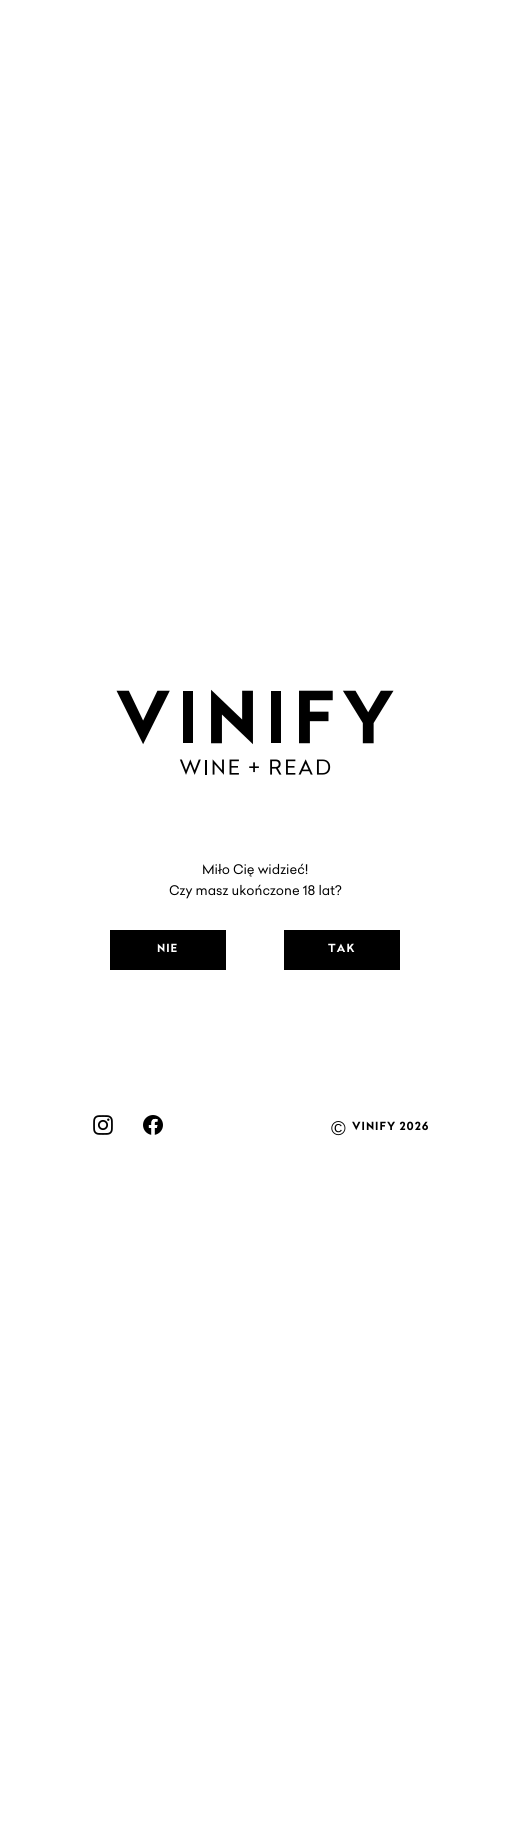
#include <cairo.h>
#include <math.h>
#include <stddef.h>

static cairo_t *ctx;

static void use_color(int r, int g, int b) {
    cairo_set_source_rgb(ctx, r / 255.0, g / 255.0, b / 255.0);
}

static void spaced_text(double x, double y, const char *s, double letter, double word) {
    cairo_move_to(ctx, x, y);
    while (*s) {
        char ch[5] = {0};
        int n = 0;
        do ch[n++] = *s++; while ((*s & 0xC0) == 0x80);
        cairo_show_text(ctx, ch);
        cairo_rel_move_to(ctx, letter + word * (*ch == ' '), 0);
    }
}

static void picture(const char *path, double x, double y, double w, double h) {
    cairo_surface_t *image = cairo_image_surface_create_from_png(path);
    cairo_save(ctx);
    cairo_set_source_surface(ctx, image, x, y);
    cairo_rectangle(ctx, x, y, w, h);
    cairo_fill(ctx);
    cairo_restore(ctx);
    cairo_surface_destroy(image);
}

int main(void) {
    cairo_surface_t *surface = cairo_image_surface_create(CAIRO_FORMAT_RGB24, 510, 1829);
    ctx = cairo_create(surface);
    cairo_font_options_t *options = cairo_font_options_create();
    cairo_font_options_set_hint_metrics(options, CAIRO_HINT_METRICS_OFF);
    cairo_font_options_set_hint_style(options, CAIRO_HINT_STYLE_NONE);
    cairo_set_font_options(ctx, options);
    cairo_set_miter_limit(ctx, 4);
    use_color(255, 255, 255);
    cairo_paint(ctx);
    picture("img1.png", 116, 689, 278, 86);
    cairo_select_font_face(ctx, "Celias", CAIRO_FONT_SLANT_NORMAL, CAIRO_FONT_WEIGHT_NORMAL);
    cairo_set_font_size(ctx, 13);
    use_color(0, 0, 0);
    cairo_move_to(ctx, 202, 874);
    cairo_show_text(ctx, "Miło Cię widzieć!");
    cairo_move_to(ctx, 169, 895);
    cairo_show_text(ctx, "Czy masz ukończone 18 lat?");
    cairo_rectangle(ctx, 110, 930, 116, 40);
    cairo_fill(ctx);
    cairo_select_font_face(ctx, "Celias", CAIRO_FONT_SLANT_NORMAL, CAIRO_FONT_WEIGHT_BOLD);
    cairo_set_font_size(ctx, 11);
    use_color(255, 255, 255);
    spaced_text(157, 952, "NIE", 1, 0);
    use_color(0, 0, 0);
    cairo_rectangle(ctx, 284, 930, 116, 40);
    cairo_fill(ctx);
    use_color(255, 255, 255);
    spaced_text(328, 952, "TAK", 1, 0);
    picture("img2.png", 93, 1115, 20, 20);
    picture("img3.png", 143, 1115, 20, 20);
    cairo_select_font_face(ctx, "Liberation Sans", CAIRO_FONT_SLANT_NORMAL, CAIRO_FONT_WEIGHT_NORMAL);
    cairo_set_font_size(ctx, 20);
    use_color(0, 0, 0);
    spaced_text(331, 1135, "©", 1, 0);
    cairo_select_font_face(ctx, "Celias", CAIRO_FONT_SLANT_NORMAL, CAIRO_FONT_WEIGHT_BOLD);
    cairo_set_font_size(ctx, 11);
    spaced_text(352, 1130, "VINIFY 2026", 1, 0);
    cairo_surface_write_to_png(surface, "result.png");
    cairo_font_options_destroy(options);
    cairo_destroy(ctx);
    cairo_surface_destroy(surface);
    return 0;
}
